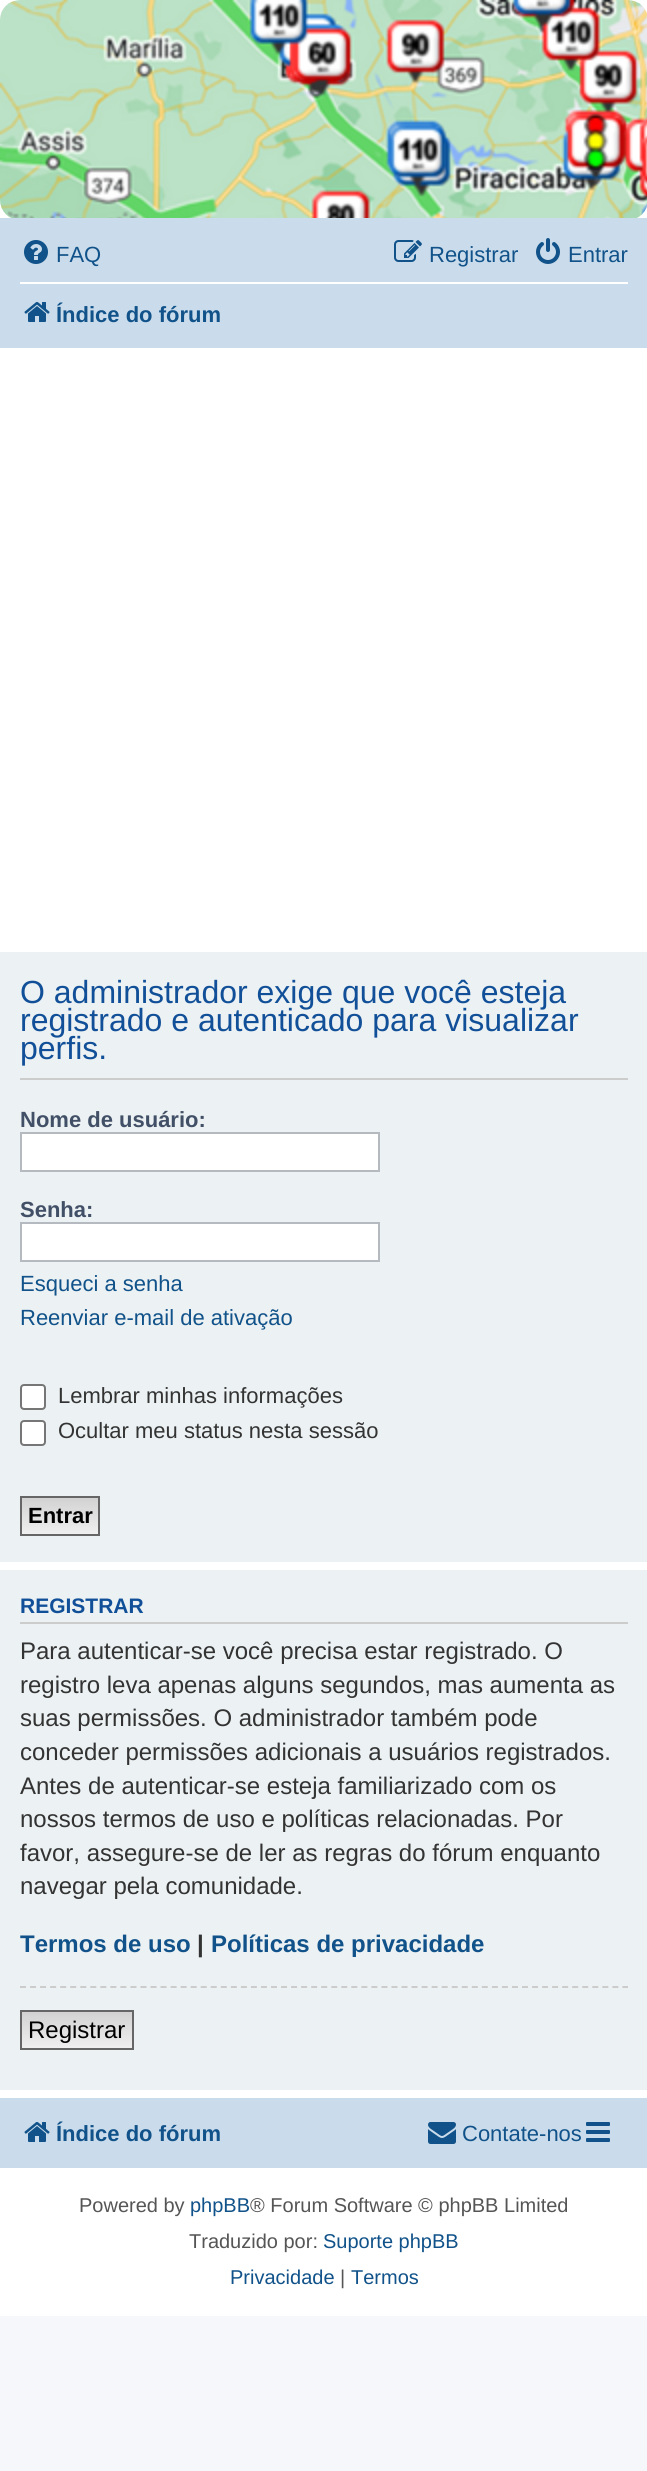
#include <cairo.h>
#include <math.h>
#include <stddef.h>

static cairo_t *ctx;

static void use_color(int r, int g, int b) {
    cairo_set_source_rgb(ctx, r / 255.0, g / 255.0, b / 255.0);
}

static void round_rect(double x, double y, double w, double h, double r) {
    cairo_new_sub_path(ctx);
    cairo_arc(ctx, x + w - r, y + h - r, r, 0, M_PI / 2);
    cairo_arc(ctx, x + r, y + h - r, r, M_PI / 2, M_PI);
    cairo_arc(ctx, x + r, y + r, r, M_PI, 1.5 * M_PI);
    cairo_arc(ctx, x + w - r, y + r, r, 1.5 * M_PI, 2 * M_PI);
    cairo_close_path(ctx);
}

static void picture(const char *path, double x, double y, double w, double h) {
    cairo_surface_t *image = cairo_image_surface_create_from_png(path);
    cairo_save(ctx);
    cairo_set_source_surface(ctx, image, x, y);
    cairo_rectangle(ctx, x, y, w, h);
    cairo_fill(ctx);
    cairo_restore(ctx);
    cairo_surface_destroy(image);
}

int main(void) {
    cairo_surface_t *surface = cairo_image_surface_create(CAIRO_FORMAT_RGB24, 647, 2471);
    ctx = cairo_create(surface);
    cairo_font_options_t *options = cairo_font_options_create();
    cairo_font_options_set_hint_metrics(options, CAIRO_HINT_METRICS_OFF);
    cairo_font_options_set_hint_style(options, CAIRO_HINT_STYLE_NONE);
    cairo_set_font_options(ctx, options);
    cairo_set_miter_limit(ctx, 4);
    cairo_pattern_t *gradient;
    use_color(245, 247, 250);
    cairo_paint(ctx);
    use_color(255, 255, 255);
    cairo_rectangle(ctx, 0, 0, 647, 2316);
    cairo_fill(ctx);
    picture("img1.png", 0, 0, 647, 218);
    use_color(202, 220, 235);
    cairo_rectangle(ctx, 0, 218, 647, 130);
    cairo_fill(ctx);
    picture("img2.png", 24, 240, 24, 24);
    cairo_select_font_face(ctx, "Liberation Sans", CAIRO_FONT_SLANT_NORMAL, CAIRO_FONT_WEIGHT_NORMAL);
    cairo_set_font_size(ctx, 22);
    use_color(16, 82, 137);
    cairo_move_to(ctx, 56, 262);
    cairo_show_text(ctx, "FAQ");
    picture("img3.png", 394, 240, 28, 22);
    cairo_move_to(ctx, 429, 262);
    cairo_show_text(ctx, "Registrar");
    picture("img4.png", 536, 238, 24, 26);
    cairo_move_to(ctx, 568, 262);
    cairo_show_text(ctx, "Entrar");
    use_color(255, 255, 255);
    cairo_rectangle(ctx, 20, 282, 608, 2);
    cairo_fill(ctx);
    picture("img5.png", 24, 302, 26, 20);
    cairo_select_font_face(ctx, "Liberation Sans", CAIRO_FONT_SLANT_NORMAL, CAIRO_FONT_WEIGHT_BOLD);
    use_color(16, 82, 137);
    cairo_move_to(ctx, 56, 322);
    cairo_show_text(ctx, "Índice do fórum");
    use_color(236, 241, 243);
    cairo_rectangle(ctx, 0, 952, 647, 610);
    cairo_fill(ctx);
    use_color(204, 204, 204);
    cairo_rectangle(ctx, 20, 1078, 608, 2);
    cairo_fill(ctx);
    cairo_select_font_face(ctx, "Liberation Sans", CAIRO_FONT_SLANT_NORMAL, CAIRO_FONT_WEIGHT_NORMAL);
    cairo_set_font_size(ctx, 32);
    use_color(17, 80, 152);
    cairo_move_to(ctx, 20, 1003);
    cairo_show_text(ctx, "O administrador exige que você esteja");
    cairo_move_to(ctx, 20, 1031);
    cairo_show_text(ctx, "registrado e autenticado para visualizar");
    cairo_move_to(ctx, 20, 1059);
    cairo_show_text(ctx, "perfis.");
    cairo_select_font_face(ctx, "Liberation Sans", CAIRO_FONT_SLANT_NORMAL, CAIRO_FONT_WEIGHT_BOLD);
    cairo_set_font_size(ctx, 22);
    use_color(66, 80, 103);
    cairo_move_to(ctx, 20, 1127);
    cairo_show_text(ctx, "Nome de usuário:");
    use_color(255, 255, 255);
    cairo_rectangle(ctx, 21, 1133, 358, 38);
    cairo_fill_preserve(ctx);
    use_color(180, 186, 192);
    cairo_stroke(ctx);
    use_color(66, 80, 103);
    cairo_move_to(ctx, 20, 1217);
    cairo_show_text(ctx, "Senha:");
    use_color(255, 255, 255);
    cairo_rectangle(ctx, 21, 1223, 358, 38);
    cairo_fill_preserve(ctx);
    use_color(180, 186, 192);
    cairo_stroke(ctx);
    cairo_select_font_face(ctx, "Liberation Sans", CAIRO_FONT_SLANT_NORMAL, CAIRO_FONT_WEIGHT_NORMAL);
    use_color(16, 82, 137);
    cairo_move_to(ctx, 20, 1291);
    cairo_show_text(ctx, "Esqueci a senha");
    cairo_move_to(ctx, 20, 1325);
    cairo_show_text(ctx, "Reenviar e-mail de ativação");
    use_color(255, 255, 255);
    round_rect(21, 1385, 24, 24, 3);
    cairo_fill_preserve(ctx);
    use_color(118, 118, 118);
    cairo_stroke(ctx);
    use_color(51, 51, 51);
    cairo_move_to(ctx, 58, 1403);
    cairo_show_text(ctx, "Lembrar minhas informações");
    use_color(255, 255, 255);
    round_rect(21, 1421, 24, 24, 3);
    cairo_fill_preserve(ctx);
    use_color(118, 118, 118);
    cairo_stroke(ctx);
    use_color(51, 51, 51);
    cairo_move_to(ctx, 58, 1438);
    cairo_show_text(ctx, "Ocultar meu status nesta sessão");
    gradient = cairo_pattern_create_linear(60, 1498, 60, 1534);
    cairo_pattern_add_color_stop_rgba(gradient, 0, 0.824, 0.824, 0.824, 1);
    cairo_pattern_add_color_stop_rgba(gradient, 1, 0.937, 0.937, 0.937, 1);
    cairo_set_source(ctx, gradient);
    cairo_pattern_destroy(gradient);
    cairo_rectangle(ctx, 22, 1498, 76, 36);
    cairo_fill(ctx);
    cairo_rectangle(ctx, 21, 1497, 78, 38);
    use_color(102, 102, 102);
    cairo_stroke(ctx);
    cairo_select_font_face(ctx, "Liberation Sans", CAIRO_FONT_SLANT_NORMAL, CAIRO_FONT_WEIGHT_BOLD);
    use_color(0, 0, 0);
    cairo_move_to(ctx, 28, 1523);
    cairo_show_text(ctx, "Entrar");
    use_color(236, 241, 243);
    cairo_rectangle(ctx, 0, 1570, 647, 520);
    cairo_fill(ctx);
    use_color(204, 204, 204);
    cairo_rectangle(ctx, 20, 1622, 608, 2);
    cairo_fill(ctx);
    cairo_set_font_size(ctx, 21);
    use_color(17, 80, 152);
    cairo_move_to(ctx, 20, 1613);
    cairo_show_text(ctx, "REGISTRAR");
    cairo_select_font_face(ctx, "Liberation Sans", CAIRO_FONT_SLANT_NORMAL, CAIRO_FONT_WEIGHT_NORMAL);
    cairo_set_font_size(ctx, 24);
    use_color(51, 51, 51);
    cairo_move_to(ctx, 20, 1659);
    cairo_show_text(ctx, "Para autenticar-se você precisa estar registrado. O");
    cairo_move_to(ctx, 20, 1693);
    cairo_show_text(ctx, "registro leva apenas alguns segundos, mas aumenta as");
    cairo_move_to(ctx, 20, 1726);
    cairo_show_text(ctx, "suas permissões. O administrador também pode");
    cairo_move_to(ctx, 20, 1760);
    cairo_show_text(ctx, "conceder permissões adicionais a usuários registrados.");
    cairo_move_to(ctx, 20, 1794);
    cairo_show_text(ctx, "Antes de autenticar-se esteja familiarizado com os");
    cairo_move_to(ctx, 20, 1827);
    cairo_show_text(ctx, "nossos termos de uso e políticas relacionadas. Por");
    cairo_move_to(ctx, 20, 1861);
    cairo_show_text(ctx, "favor, assegure-se de ler as regras do fórum enquanto");
    cairo_move_to(ctx, 20, 1894);
    cairo_show_text(ctx, "navegar pela comunidade.");
    cairo_select_font_face(ctx, "Liberation Sans", CAIRO_FONT_SLANT_NORMAL, CAIRO_FONT_WEIGHT_BOLD);
    use_color(16, 82, 137);
    cairo_move_to(ctx, 20, 1952);
    cairo_show_text(ctx, "Termos de uso");
    use_color(51, 51, 51);
    cairo_move_to(ctx, 197, 1952);
    cairo_show_text(ctx, "|");
    use_color(16, 82, 137);
    cairo_move_to(ctx, 211, 1952);
    cairo_show_text(ctx, "Políticas de privacidade");
    cairo_new_path(ctx);
    cairo_move_to(ctx, 20, 1987);
    cairo_line_to(ctx, 628, 1987);
    use_color(204, 204, 204);
    cairo_set_dash(ctx, (double[]){6, 4.04}, 2, 0);
    cairo_stroke(ctx);
    gradient = cairo_pattern_create_linear(77, 2012, 77, 2048);
    cairo_pattern_add_color_stop_rgba(gradient, 0, 0.824, 0.824, 0.824, 1);
    cairo_pattern_add_color_stop_rgba(gradient, 1, 0.937, 0.937, 0.937, 1);
    cairo_set_source(ctx, gradient);
    cairo_pattern_destroy(gradient);
    cairo_rectangle(ctx, 22, 2012, 110, 36);
    cairo_fill(ctx);
    cairo_rectangle(ctx, 21, 2011, 112, 38);
    use_color(102, 102, 102);
    cairo_set_dash(ctx, NULL, 0, 0);
    cairo_stroke(ctx);
    cairo_select_font_face(ctx, "Liberation Sans", CAIRO_FONT_SLANT_NORMAL, CAIRO_FONT_WEIGHT_NORMAL);
    use_color(0, 0, 0);
    cairo_move_to(ctx, 28, 2038);
    cairo_show_text(ctx, "Registrar");
    use_color(202, 220, 235);
    cairo_rectangle(ctx, 0, 2098, 647, 70);
    cairo_fill(ctx);
    picture("img5.png", 24, 2122, 26, 20);
    cairo_select_font_face(ctx, "Liberation Sans", CAIRO_FONT_SLANT_NORMAL, CAIRO_FONT_WEIGHT_BOLD);
    cairo_set_font_size(ctx, 22);
    use_color(16, 82, 137);
    cairo_move_to(ctx, 56, 2141);
    cairo_show_text(ctx, "Índice do fórum");
    picture("img6.png", 428, 2122, 28, 22);
    cairo_select_font_face(ctx, "Liberation Sans", CAIRO_FONT_SLANT_NORMAL, CAIRO_FONT_WEIGHT_NORMAL);
    cairo_move_to(ctx, 462, 2141);
    cairo_show_text(ctx, "Contate-nos");
    picture("img7.png", 586, 2122, 24, 20);
    cairo_set_font_size(ctx, 20);
    use_color(85, 85, 85);
    cairo_move_to(ctx, 79, 2212);
    cairo_show_text(ctx, "Powered by");
    use_color(16, 82, 137);
    cairo_move_to(ctx, 190, 2212);
    cairo_show_text(ctx, "phpBB");
    use_color(85, 85, 85);
    cairo_move_to(ctx, 250, 2212);
    cairo_show_text(ctx, "® Forum Software © phpBB Limited");
    cairo_move_to(ctx, 189, 2248);
    cairo_show_text(ctx, "Traduzido por:");
    use_color(16, 82, 137);
    cairo_move_to(ctx, 323, 2248);
    cairo_show_text(ctx, "Suporte phpBB");
    cairo_move_to(ctx, 230, 2284);
    cairo_show_text(ctx, "Privacidade");
    use_color(85, 85, 85);
    cairo_move_to(ctx, 340, 2284);
    cairo_show_text(ctx, "|");
    use_color(16, 82, 137);
    cairo_move_to(ctx, 351, 2284);
    cairo_show_text(ctx, "Termos");
    cairo_surface_write_to_png(surface, "result.png");
    cairo_font_options_destroy(options);
    cairo_destroy(ctx);
    cairo_surface_destroy(surface);
    return 0;
}
